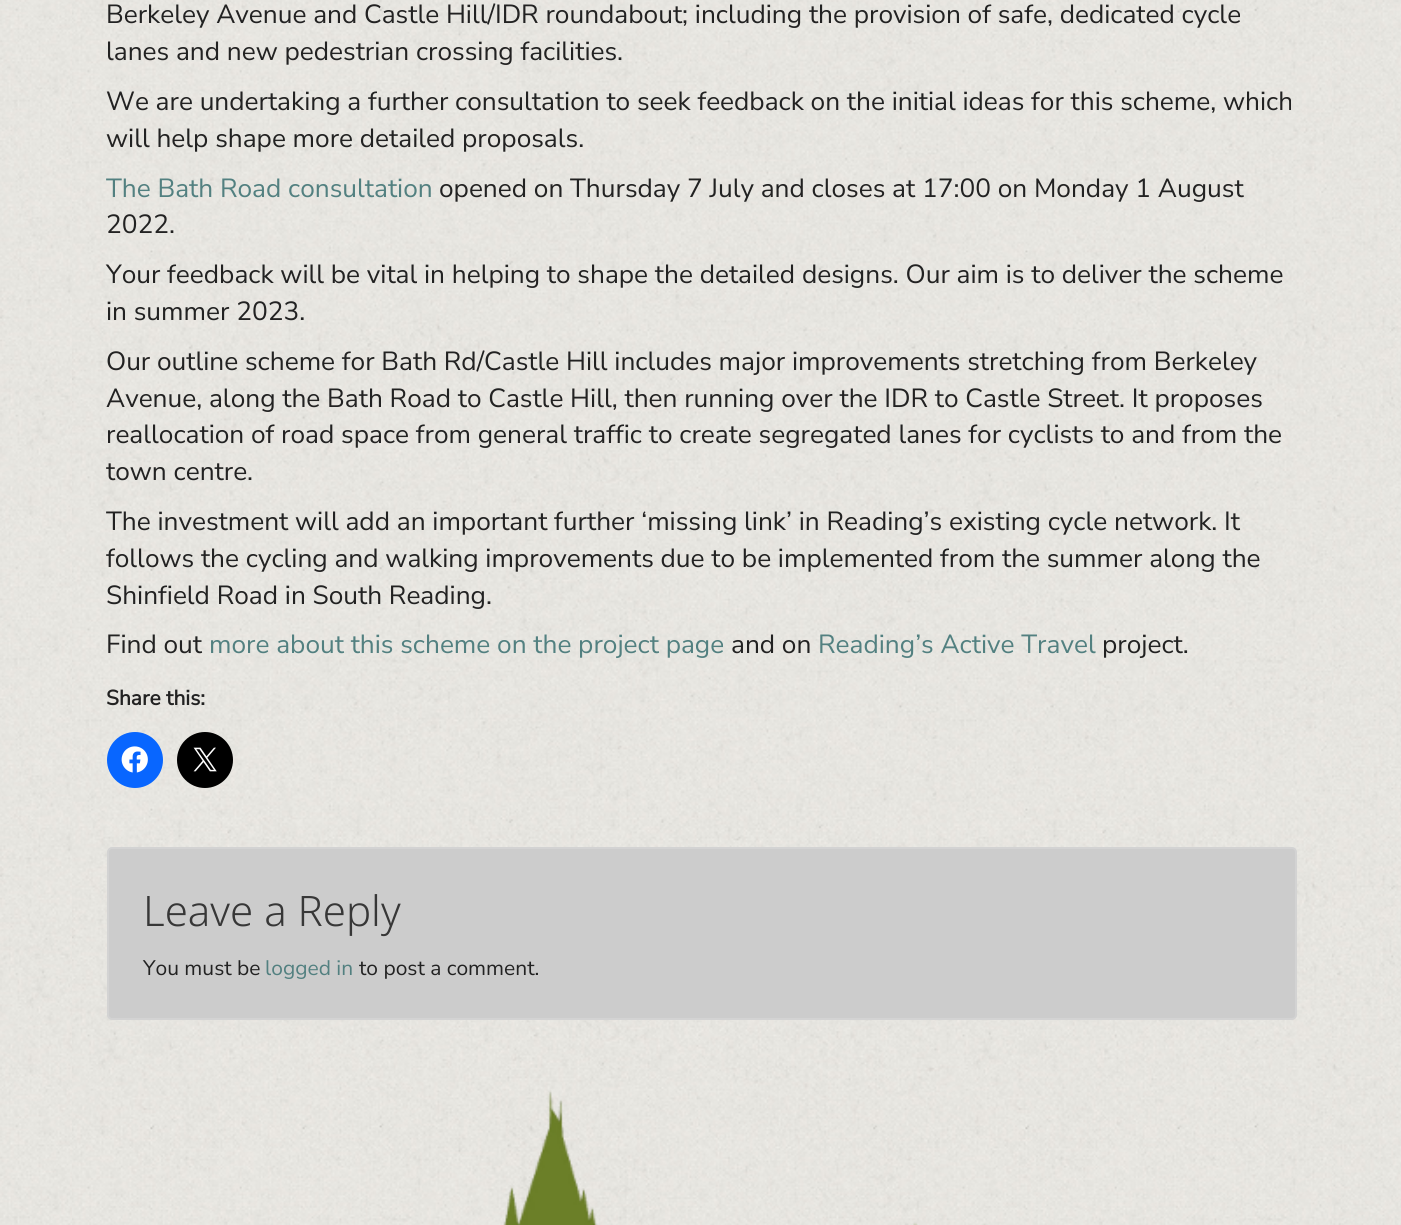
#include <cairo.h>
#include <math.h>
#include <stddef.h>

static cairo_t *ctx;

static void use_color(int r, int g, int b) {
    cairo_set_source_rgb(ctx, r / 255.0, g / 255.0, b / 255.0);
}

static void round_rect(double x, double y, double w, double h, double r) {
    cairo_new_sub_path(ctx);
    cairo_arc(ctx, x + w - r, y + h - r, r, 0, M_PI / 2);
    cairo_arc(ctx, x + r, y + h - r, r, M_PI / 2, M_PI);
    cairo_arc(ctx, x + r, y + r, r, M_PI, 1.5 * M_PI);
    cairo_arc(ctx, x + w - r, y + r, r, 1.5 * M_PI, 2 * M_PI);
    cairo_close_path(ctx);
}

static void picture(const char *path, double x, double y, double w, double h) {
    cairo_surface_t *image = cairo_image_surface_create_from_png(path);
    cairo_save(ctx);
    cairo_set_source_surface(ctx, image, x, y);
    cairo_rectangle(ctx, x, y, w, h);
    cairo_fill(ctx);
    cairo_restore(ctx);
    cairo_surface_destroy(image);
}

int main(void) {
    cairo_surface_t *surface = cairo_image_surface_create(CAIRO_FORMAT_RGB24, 1401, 1225);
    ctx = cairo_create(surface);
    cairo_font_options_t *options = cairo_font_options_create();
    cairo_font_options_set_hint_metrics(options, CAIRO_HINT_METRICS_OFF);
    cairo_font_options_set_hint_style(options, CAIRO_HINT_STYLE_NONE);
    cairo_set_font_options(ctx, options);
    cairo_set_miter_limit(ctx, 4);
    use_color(255, 255, 255);
    cairo_paint(ctx);
    picture("img1.png", 0, 0, 1401, 1225);
    picture("img2.png", 72, 0, 1260, 1225);
    cairo_select_font_face(ctx, "Nunito Sans ExtraLight", CAIRO_FONT_SLANT_NORMAL, CAIRO_FONT_WEIGHT_NORMAL);
    cairo_set_font_size(ctx, 26.25);
    use_color(34, 34, 34);
    cairo_move_to(ctx, 106, 23);
    cairo_show_text(ctx, "Berkeley Avenue and Castle Hill/IDR roundabout; including the provision of safe, dedicated cycle");
    cairo_move_to(ctx, 106, 60);
    cairo_show_text(ctx, "lanes and new pedestrian crossing facilities.");
    cairo_move_to(ctx, 106, 110);
    cairo_show_text(ctx, "We are undertaking a further consultation to seek feedback on the initial ideas for this scheme, which");
    cairo_move_to(ctx, 106, 147);
    cairo_show_text(ctx, "will help shape more detailed proposals.");
    use_color(82, 128, 128);
    cairo_move_to(ctx, 106, 197);
    cairo_show_text(ctx, "The Bath Road consultation");
    use_color(34, 34, 34);
    cairo_move_to(ctx, 439, 197);
    cairo_show_text(ctx, "opened on Thursday 7 July and closes at 17:00 on Monday 1 August");
    cairo_move_to(ctx, 106, 233);
    cairo_show_text(ctx, "2022.");
    cairo_move_to(ctx, 106, 283);
    cairo_show_text(ctx, "Your feedback will be vital in helping to shape the detailed designs. Our aim is to deliver the scheme");
    cairo_move_to(ctx, 106, 320);
    cairo_show_text(ctx, "in summer 2023.");
    cairo_move_to(ctx, 106, 370);
    cairo_show_text(ctx, "Our outline scheme for Bath Rd/Castle Hill includes major improvements stretching from Berkeley");
    cairo_move_to(ctx, 106, 407);
    cairo_show_text(ctx, "Avenue, along the Bath Road to Castle Hill, then running over the IDR to Castle Street. It proposes");
    cairo_move_to(ctx, 106, 443);
    cairo_show_text(ctx, "reallocation of road space from general traffic to create segregated lanes for cyclists to and from the");
    cairo_move_to(ctx, 106, 480);
    cairo_show_text(ctx, "town centre.");
    cairo_move_to(ctx, 106, 530);
    cairo_show_text(ctx, "The investment will add an important further ‘missing link’ in Reading’s existing cycle network. It");
    cairo_move_to(ctx, 106, 567);
    cairo_show_text(ctx, "follows the cycling and walking improvements due to be implemented from the summer along the");
    cairo_move_to(ctx, 106, 604);
    cairo_show_text(ctx, "Shinfield Road in South Reading.");
    cairo_move_to(ctx, 106, 653);
    cairo_show_text(ctx, "Find out");
    use_color(82, 128, 128);
    cairo_move_to(ctx, 209, 653);
    cairo_show_text(ctx, "more about this scheme on the project page");
    use_color(34, 34, 34);
    cairo_move_to(ctx, 731, 653);
    cairo_show_text(ctx, "and on");
    use_color(82, 128, 128);
    cairo_move_to(ctx, 818, 653);
    cairo_show_text(ctx, "Reading’s Active Travel");
    use_color(34, 34, 34);
    cairo_move_to(ctx, 1102, 653);
    cairo_show_text(ctx, "project.");
    cairo_select_font_face(ctx, "Nunito Sans", CAIRO_FONT_SLANT_NORMAL, CAIRO_FONT_WEIGHT_BOLD);
    cairo_set_font_size(ctx, 21);
    cairo_move_to(ctx, 106, 705);
    cairo_show_text(ctx, "Share this:");
    use_color(8, 102, 255);
    cairo_new_path(ctx);
    cairo_arc(ctx, 135, 760, 28, 0, 2 * M_PI);
    cairo_fill(ctx);
    picture("img3.png", 121, 746, 27, 27);
    use_color(0, 0, 0);
    cairo_arc(ctx, 205, 760, 28, 0, 2 * M_PI);
    cairo_fill(ctx);
    picture("img4.png", 193, 747, 24, 25);
    use_color(204, 204, 204);
    round_rect(108, 848, 1188, 171, 4);
    cairo_fill_preserve(ctx);
    use_color(211, 211, 211);
    cairo_stroke(ctx);
    cairo_select_font_face(ctx, "Noto Sans Light", CAIRO_FONT_SLANT_NORMAL, CAIRO_FONT_WEIGHT_NORMAL);
    cairo_set_font_size(ctx, 42);
    use_color(55, 55, 55);
    cairo_move_to(ctx, 143, 926);
    cairo_show_text(ctx, "Leave a Reply");
    cairo_select_font_face(ctx, "Nunito Sans ExtraLight", CAIRO_FONT_SLANT_NORMAL, CAIRO_FONT_WEIGHT_NORMAL);
    cairo_set_font_size(ctx, 21);
    use_color(34, 34, 34);
    cairo_move_to(ctx, 143, 975);
    cairo_show_text(ctx, "You must be");
    use_color(82, 128, 128);
    cairo_move_to(ctx, 265, 975);
    cairo_show_text(ctx, "logged in");
    use_color(34, 34, 34);
    cairo_move_to(ctx, 359, 975);
    cairo_show_text(ctx, "to post a comment.");
    picture("img5.png", 503, 1090, 483, 135);
    cairo_surface_write_to_png(surface, "result.png");
    cairo_font_options_destroy(options);
    cairo_destroy(ctx);
    cairo_surface_destroy(surface);
    return 0;
}
